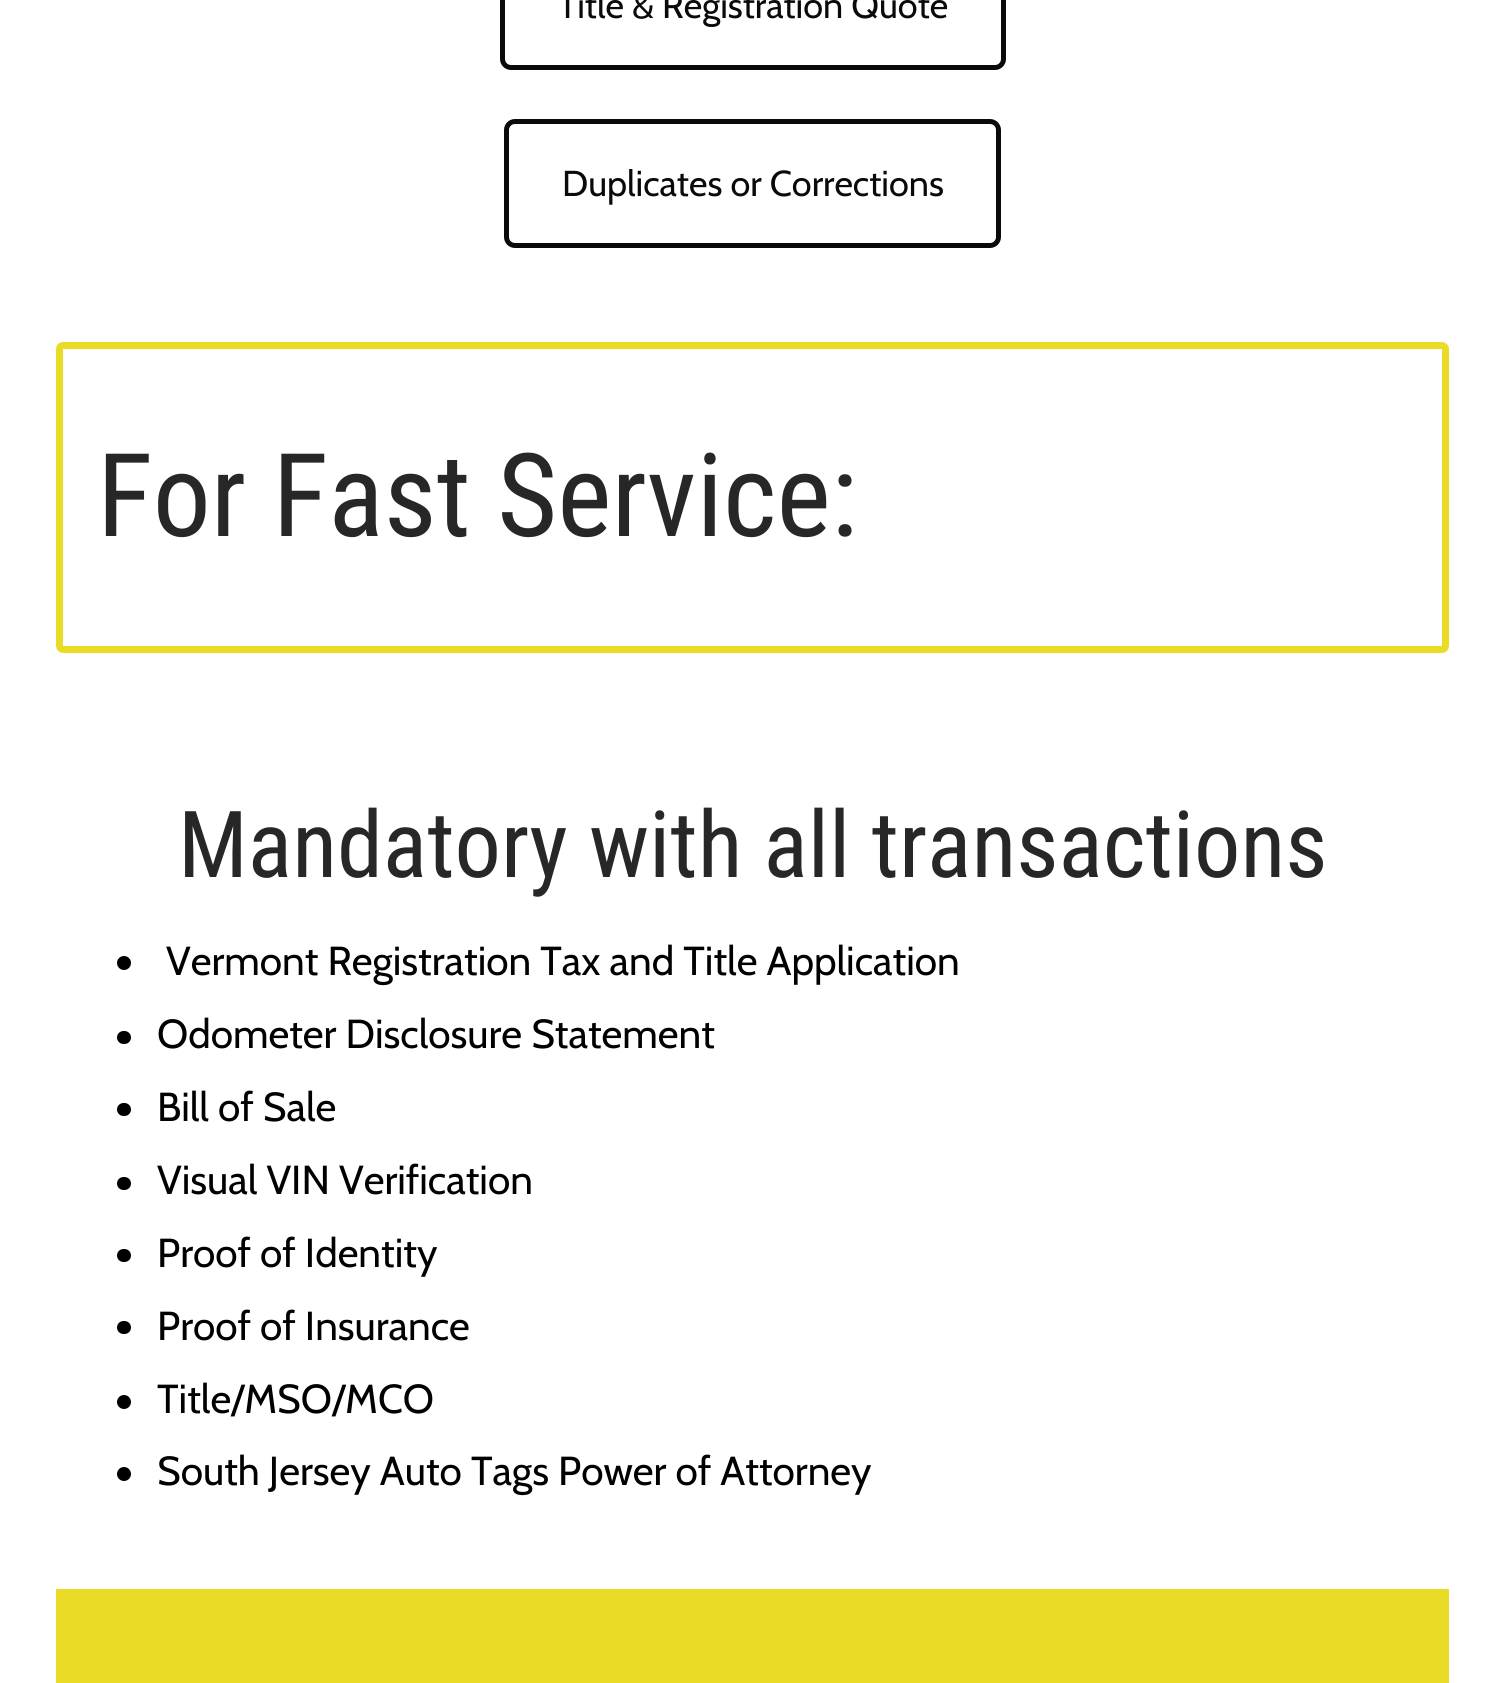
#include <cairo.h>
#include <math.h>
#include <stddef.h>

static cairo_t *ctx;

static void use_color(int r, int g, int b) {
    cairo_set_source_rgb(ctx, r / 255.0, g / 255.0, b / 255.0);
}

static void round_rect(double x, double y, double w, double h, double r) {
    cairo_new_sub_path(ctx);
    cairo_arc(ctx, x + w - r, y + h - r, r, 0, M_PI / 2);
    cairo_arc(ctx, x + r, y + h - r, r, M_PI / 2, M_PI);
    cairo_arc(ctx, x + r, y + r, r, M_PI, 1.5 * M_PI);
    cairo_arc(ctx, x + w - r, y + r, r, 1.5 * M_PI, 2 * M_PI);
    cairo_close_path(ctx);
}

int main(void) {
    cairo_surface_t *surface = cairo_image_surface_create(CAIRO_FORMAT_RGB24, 1504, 1683);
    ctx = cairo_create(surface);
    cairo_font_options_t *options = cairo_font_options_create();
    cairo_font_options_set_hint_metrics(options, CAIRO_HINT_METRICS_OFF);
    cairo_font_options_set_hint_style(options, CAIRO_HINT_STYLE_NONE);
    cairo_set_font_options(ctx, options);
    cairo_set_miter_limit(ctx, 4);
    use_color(255, 255, 255);
    cairo_paint(ctx);
    round_rect(502.5, -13.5, 501, 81, 8.5);
    use_color(10, 10, 10);
    cairo_set_line_width(ctx, 5);
    cairo_stroke(ctx);
    cairo_select_font_face(ctx, "Cabin", CAIRO_FONT_SLANT_NORMAL, CAIRO_FONT_WEIGHT_NORMAL);
    cairo_set_font_size(ctx, 36);
    cairo_move_to(ctx, 558, 18);
    cairo_show_text(ctx, "Title & Registration Quote");
    round_rect(506.5, 121.5, 492, 124, 8.5);
    cairo_stroke(ctx);
    cairo_move_to(ctx, 562, 196);
    cairo_show_text(ctx, "Duplicates or Corrections");
    round_rect(59.5, 345.5, 1386, 304, 3.5);
    use_color(233, 219, 38);
    cairo_set_line_width(ctx, 7);
    cairo_stroke(ctx);
    cairo_select_font_face(ctx, "Roboto Condensed", CAIRO_FONT_SLANT_NORMAL, CAIRO_FONT_WEIGHT_NORMAL);
    cairo_set_font_size(ctx, 115.75);
    use_color(39, 39, 39);
    cairo_move_to(ctx, 97, 536);
    cairo_show_text(ctx, "For Fast Service:");
    cairo_set_font_size(ctx, 92.5);
    cairo_move_to(ctx, 178, 877);
    cairo_show_text(ctx, "Mandatory with all transactions");
    use_color(0, 0, 0);
    cairo_new_path(ctx);
    cairo_arc(ctx, 124, 963, 7, 0, 2 * M_PI);
    cairo_fill(ctx);
    cairo_select_font_face(ctx, "Cabin", CAIRO_FONT_SLANT_NORMAL, CAIRO_FONT_WEIGHT_NORMAL);
    cairo_set_font_size(ctx, 40.5);
    cairo_move_to(ctx, 166, 975);
    cairo_show_text(ctx, "Vermont Registration Tax and Title Application");
    round_rect(117, 1031, 14, 13, 6.5);
    cairo_fill(ctx);
    cairo_move_to(ctx, 157, 1048);
    cairo_show_text(ctx, "Odometer Disclosure Statement");
    round_rect(117, 1103, 14, 13, 6.5);
    cairo_fill(ctx);
    cairo_move_to(ctx, 157, 1121);
    cairo_show_text(ctx, "Bill of Sale");
    round_rect(117, 1177, 14, 13, 6.5);
    cairo_fill(ctx);
    cairo_move_to(ctx, 157, 1194);
    cairo_show_text(ctx, "Visual VIN Verification");
    round_rect(117, 1249, 14, 13, 6.5);
    cairo_fill(ctx);
    cairo_move_to(ctx, 157, 1267);
    cairo_show_text(ctx, "Proof of Identity");
    round_rect(117, 1321, 14, 13, 6.5);
    cairo_fill(ctx);
    cairo_move_to(ctx, 157, 1340);
    cairo_show_text(ctx, "Proof of Insurance");
    cairo_new_path(ctx);
    cairo_arc(ctx, 124, 1402, 7, 0, 2 * M_PI);
    cairo_fill(ctx);
    cairo_move_to(ctx, 157, 1413);
    cairo_show_text(ctx, "Title/MSO/MCO");
    cairo_new_path(ctx);
    cairo_arc(ctx, 124, 1474, 7, 0, 2 * M_PI);
    cairo_fill(ctx);
    cairo_move_to(ctx, 157, 1485);
    cairo_show_text(ctx, "South Jersey Auto Tags Power of Attorney");
    use_color(233, 219, 38);
    cairo_rectangle(ctx, 56, 1589, 1393, 94);
    cairo_fill(ctx);
    cairo_surface_write_to_png(surface, "result.png");
    cairo_font_options_destroy(options);
    cairo_destroy(ctx);
    cairo_surface_destroy(surface);
    return 0;
}
